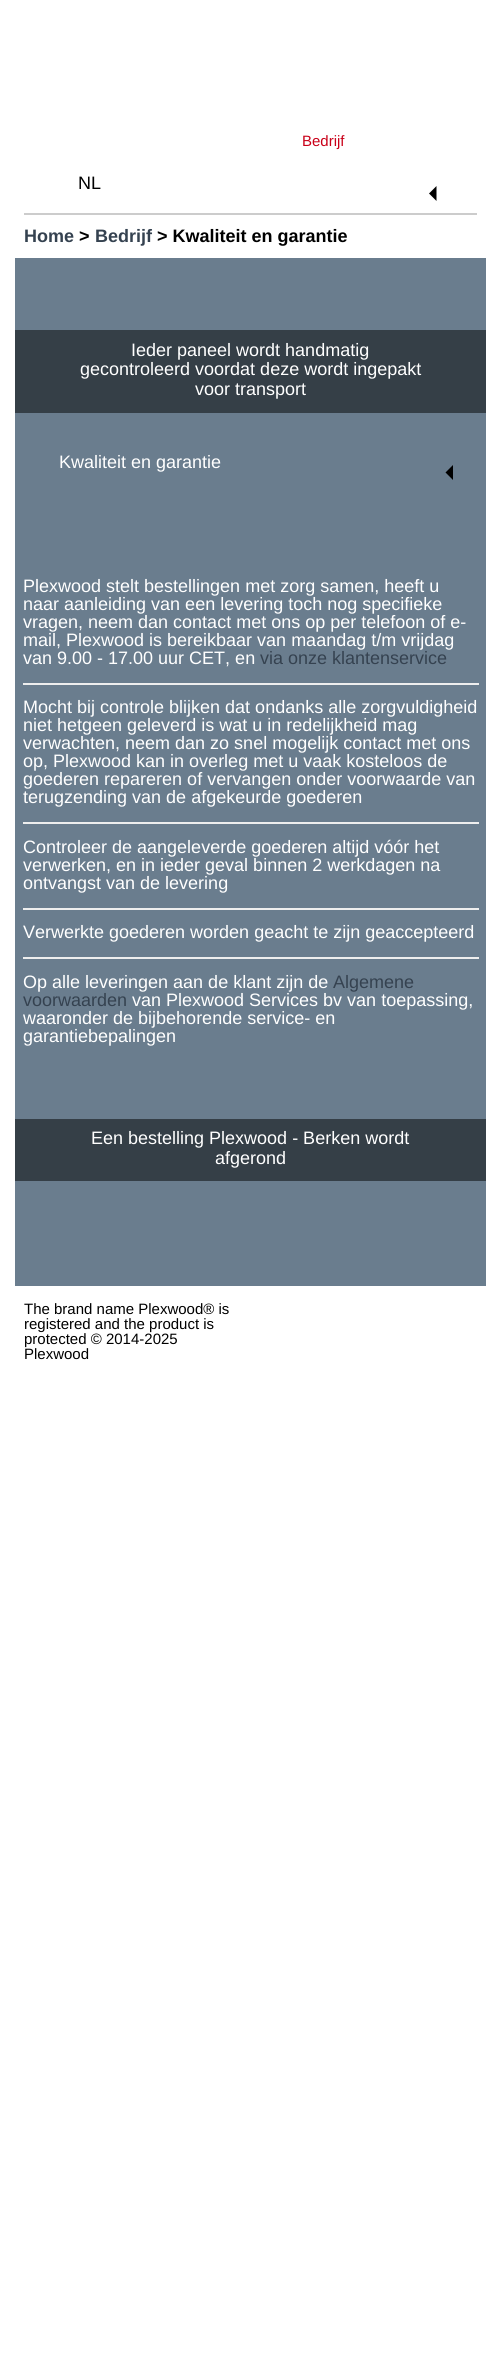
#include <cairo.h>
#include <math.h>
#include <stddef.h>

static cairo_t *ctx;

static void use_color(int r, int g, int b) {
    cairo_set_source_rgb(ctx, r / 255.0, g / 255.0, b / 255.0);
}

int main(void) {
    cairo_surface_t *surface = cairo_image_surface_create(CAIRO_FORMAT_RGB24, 501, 2365);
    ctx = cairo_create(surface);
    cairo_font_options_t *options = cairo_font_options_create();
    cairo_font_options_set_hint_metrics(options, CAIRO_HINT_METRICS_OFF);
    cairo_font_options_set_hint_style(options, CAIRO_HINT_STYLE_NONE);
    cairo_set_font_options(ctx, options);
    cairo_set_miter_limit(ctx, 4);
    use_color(255, 255, 255);
    cairo_paint(ctx);
    cairo_select_font_face(ctx, "Liberation Sans", CAIRO_FONT_SLANT_NORMAL, CAIRO_FONT_WEIGHT_NORMAL);
    cairo_set_font_size(ctx, 15);
    use_color(201, 0, 24);
    cairo_move_to(ctx, 302, 146);
    cairo_show_text(ctx, "Bedrijf");
    cairo_set_font_size(ctx, 18);
    use_color(0, 0, 0);
    cairo_move_to(ctx, 78, 189);
    cairo_show_text(ctx, "NL");
    cairo_new_path(ctx);
    cairo_move_to(ctx, 436.5, 186);
    cairo_line_to(ctx, 436.5, 201);
    cairo_line_to(ctx, 429, 193.5);
    cairo_close_path(ctx);
    cairo_fill(ctx);
    use_color(204, 204, 204);
    cairo_rectangle(ctx, 24, 213, 453, 2);
    cairo_fill(ctx);
    cairo_select_font_face(ctx, "Liberation Sans", CAIRO_FONT_SLANT_NORMAL, CAIRO_FONT_WEIGHT_BOLD);
    use_color(53, 66, 80);
    cairo_move_to(ctx, 24, 242);
    cairo_show_text(ctx, "Home");
    use_color(0, 0, 0);
    cairo_move_to(ctx, 79, 242);
    cairo_show_text(ctx, ">");
    use_color(53, 66, 80);
    cairo_move_to(ctx, 95, 242);
    cairo_show_text(ctx, "Bedrijf");
    use_color(0, 0, 0);
    cairo_move_to(ctx, 157, 242);
    cairo_show_text(ctx, "> Kwaliteit en garantie");
    use_color(106, 125, 142);
    cairo_rectangle(ctx, 15, 258, 471, 1028);
    cairo_fill(ctx);
    use_color(53, 63, 71);
    cairo_rectangle(ctx, 15, 330, 471, 83);
    cairo_fill(ctx);
    cairo_select_font_face(ctx, "Liberation Sans", CAIRO_FONT_SLANT_NORMAL, CAIRO_FONT_WEIGHT_NORMAL);
    use_color(255, 255, 255);
    cairo_move_to(ctx, 131, 356);
    cairo_show_text(ctx, "Ieder paneel wordt handmatig");
    cairo_move_to(ctx, 80, 375);
    cairo_show_text(ctx, "gecontroleerd voordat deze wordt ingepakt");
    cairo_move_to(ctx, 195, 395);
    cairo_show_text(ctx, "voor transport");
    cairo_move_to(ctx, 59, 468);
    cairo_show_text(ctx, "Kwaliteit en garantie");
    use_color(0, 0, 0);
    cairo_new_path(ctx);
    cairo_move_to(ctx, 453, 465);
    cairo_line_to(ctx, 453, 480);
    cairo_line_to(ctx, 445.5, 472.5);
    cairo_close_path(ctx);
    cairo_fill(ctx);
    use_color(255, 255, 255);
    cairo_move_to(ctx, 23, 592);
    cairo_show_text(ctx, "Plexwood stelt bestellingen met zorg samen, heeft u");
    cairo_move_to(ctx, 23, 610);
    cairo_show_text(ctx, "naar aanleiding van een levering toch nog specifieke");
    cairo_move_to(ctx, 23, 628);
    cairo_show_text(ctx, "vragen, neem dan contact met ons op per telefoon of e-");
    cairo_move_to(ctx, 23, 646);
    cairo_show_text(ctx, "mail, Plexwood is bereikbaar van maandag t/m vrijdag");
    cairo_move_to(ctx, 23, 664);
    cairo_show_text(ctx, "van 9.00 - 17.00 uur CET, en");
    use_color(53, 66, 80);
    cairo_move_to(ctx, 260, 664);
    cairo_show_text(ctx, "via onze klantenservice");
    use_color(238, 238, 238);
    cairo_rectangle(ctx, 23, 683, 456, 2);
    cairo_fill(ctx);
    use_color(255, 255, 255);
    cairo_move_to(ctx, 23, 713);
    cairo_show_text(ctx, "Mocht bij controle blijken dat ondanks alle zorgvuldigheid");
    cairo_move_to(ctx, 23, 731);
    cairo_show_text(ctx, "niet hetgeen geleverd is wat u in redelijkheid mag");
    cairo_move_to(ctx, 23, 749);
    cairo_show_text(ctx, "verwachten, neem dan zo snel mogelijk contact met ons");
    cairo_move_to(ctx, 23, 767);
    cairo_show_text(ctx, "op, Plexwood kan in overleg met u vaak kosteloos de");
    cairo_move_to(ctx, 23, 785);
    cairo_show_text(ctx, "goederen repareren of vervangen onder voorwaarde van");
    cairo_move_to(ctx, 23, 803);
    cairo_show_text(ctx, "terugzending van de afgekeurde goederen");
    use_color(238, 238, 238);
    cairo_rectangle(ctx, 23, 822, 456, 2);
    cairo_fill(ctx);
    use_color(255, 255, 255);
    cairo_move_to(ctx, 23, 853);
    cairo_show_text(ctx, "Controleer de aangeleverde goederen altijd vóór het");
    cairo_move_to(ctx, 23, 871);
    cairo_show_text(ctx, "verwerken, en in ieder geval binnen 2 werkdagen na");
    cairo_move_to(ctx, 23, 889);
    cairo_show_text(ctx, "ontvangst van de levering");
    use_color(238, 238, 238);
    cairo_rectangle(ctx, 23, 908, 456, 2);
    cairo_fill(ctx);
    use_color(255, 255, 255);
    cairo_move_to(ctx, 23, 938);
    cairo_show_text(ctx, "Verwerkte goederen worden geacht te zijn geaccepteerd");
    use_color(238, 238, 238);
    cairo_rectangle(ctx, 23, 957, 456, 2);
    cairo_fill(ctx);
    use_color(255, 255, 255);
    cairo_move_to(ctx, 23, 988);
    cairo_show_text(ctx, "Op alle leveringen aan de klant zijn de");
    use_color(53, 66, 80);
    cairo_move_to(ctx, 333, 988);
    cairo_show_text(ctx, "Algemene");
    cairo_move_to(ctx, 23, 1006);
    cairo_show_text(ctx, "voorwaarden");
    use_color(255, 255, 255);
    cairo_move_to(ctx, 132, 1006);
    cairo_show_text(ctx, "van Plexwood Services bv van toepassing,");
    cairo_move_to(ctx, 23, 1024);
    cairo_show_text(ctx, "waaronder de bijbehorende service- en");
    cairo_move_to(ctx, 23, 1042);
    cairo_show_text(ctx, "garantiebepalingen");
    use_color(53, 63, 71);
    cairo_rectangle(ctx, 15, 1119, 471, 62);
    cairo_fill(ctx);
    use_color(255, 255, 255);
    cairo_move_to(ctx, 91, 1144);
    cairo_show_text(ctx, "Een bestelling Plexwood - Berken wordt");
    cairo_move_to(ctx, 215, 1164);
    cairo_show_text(ctx, "afgerond");
    cairo_set_font_size(ctx, 15);
    use_color(0, 0, 0);
    cairo_move_to(ctx, 24, 1314);
    cairo_show_text(ctx, "The brand name Plexwood® is");
    cairo_move_to(ctx, 24, 1329);
    cairo_show_text(ctx, "registered and the product is");
    cairo_move_to(ctx, 24, 1344);
    cairo_show_text(ctx, "protected © 2014-2025");
    cairo_move_to(ctx, 24, 1359);
    cairo_show_text(ctx, "Plexwood");
    cairo_surface_write_to_png(surface, "result.png");
    cairo_font_options_destroy(options);
    cairo_destroy(ctx);
    cairo_surface_destroy(surface);
    return 0;
}
